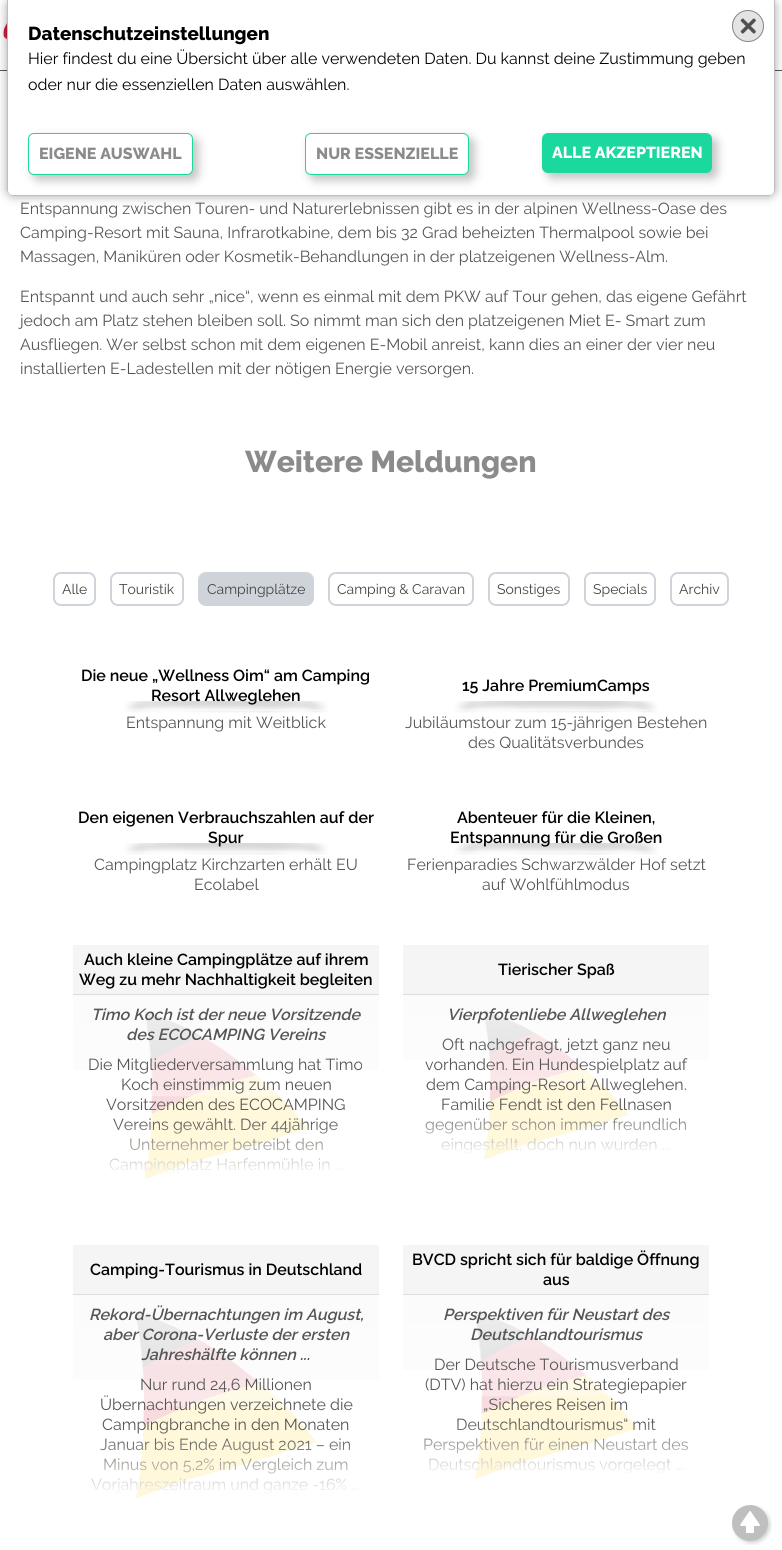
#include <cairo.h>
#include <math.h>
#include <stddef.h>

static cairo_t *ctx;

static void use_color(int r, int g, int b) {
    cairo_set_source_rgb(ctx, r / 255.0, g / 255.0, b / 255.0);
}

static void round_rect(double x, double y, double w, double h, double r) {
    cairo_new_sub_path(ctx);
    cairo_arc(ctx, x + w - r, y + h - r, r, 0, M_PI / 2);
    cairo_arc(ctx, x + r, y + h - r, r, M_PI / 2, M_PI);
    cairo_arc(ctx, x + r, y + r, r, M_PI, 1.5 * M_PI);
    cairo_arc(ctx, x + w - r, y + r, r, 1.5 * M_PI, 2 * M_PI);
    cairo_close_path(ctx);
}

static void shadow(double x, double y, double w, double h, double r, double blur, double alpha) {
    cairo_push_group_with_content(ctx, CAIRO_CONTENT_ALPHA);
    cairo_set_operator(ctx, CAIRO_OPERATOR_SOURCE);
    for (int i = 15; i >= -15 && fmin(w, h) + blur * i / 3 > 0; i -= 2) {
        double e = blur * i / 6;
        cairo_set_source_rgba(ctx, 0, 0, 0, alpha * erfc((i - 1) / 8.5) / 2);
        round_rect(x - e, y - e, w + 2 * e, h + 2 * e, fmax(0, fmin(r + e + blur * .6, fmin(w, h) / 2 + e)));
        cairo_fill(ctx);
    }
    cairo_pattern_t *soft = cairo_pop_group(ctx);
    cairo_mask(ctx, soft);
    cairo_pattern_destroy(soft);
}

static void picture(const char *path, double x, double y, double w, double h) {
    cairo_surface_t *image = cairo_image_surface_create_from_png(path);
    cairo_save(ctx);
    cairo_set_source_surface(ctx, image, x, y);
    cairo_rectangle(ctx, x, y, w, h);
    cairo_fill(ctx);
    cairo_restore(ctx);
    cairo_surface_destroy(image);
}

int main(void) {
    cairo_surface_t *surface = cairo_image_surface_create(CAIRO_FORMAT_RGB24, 782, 1550);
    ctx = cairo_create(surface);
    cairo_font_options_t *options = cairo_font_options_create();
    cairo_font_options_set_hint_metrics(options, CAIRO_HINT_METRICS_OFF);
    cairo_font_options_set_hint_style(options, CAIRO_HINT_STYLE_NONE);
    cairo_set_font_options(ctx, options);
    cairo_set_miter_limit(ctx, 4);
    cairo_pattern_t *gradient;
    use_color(255, 255, 255);
    cairo_paint(ctx);
    use_color(87, 87, 87);
    cairo_rectangle(ctx, 0, 70, 782, 1);
    cairo_fill(ctx);
    picture("img1.png", 0, 0, 7, 69);
    use_color(0, 0, 0);
    shadow(7, 0, 768, 196, 6, 5, 0.35);
    use_color(255, 255, 255);
    cairo_new_path(ctx);
    cairo_move_to(ctx, 7, 0);
    cairo_line_to(ctx, 775, 0);
    cairo_line_to(ctx, 775, 190);
    cairo_curve_to(ctx, 775, 193.5, 772.5, 196, 769, 196);
    cairo_line_to(ctx, 13, 196);
    cairo_curve_to(ctx, 9.5, 196, 7, 193.5, 7, 190);
    cairo_close_path(ctx);
    cairo_fill(ctx);
    use_color(191, 191, 191);
    cairo_set_fill_rule(ctx, CAIRO_FILL_RULE_EVEN_ODD);
    cairo_new_path(ctx);
    cairo_move_to(ctx, 7, 0);
    cairo_line_to(ctx, 775, 0);
    cairo_line_to(ctx, 775, 190);
    cairo_curve_to(ctx, 775, 193, 772, 196, 769, 196);
    cairo_line_to(ctx, 13, 196);
    cairo_curve_to(ctx, 10, 196, 7, 193, 7, 190);
    cairo_close_path(ctx);
    cairo_move_to(ctx, 8, 0);
    cairo_line_to(ctx, 774, 0);
    cairo_line_to(ctx, 774, 190);
    cairo_curve_to(ctx, 774, 193, 772, 195, 769, 195);
    cairo_line_to(ctx, 13, 195);
    cairo_curve_to(ctx, 10, 195, 8, 193, 8, 190);
    cairo_close_path(ctx);
    cairo_fill(ctx);
    cairo_select_font_face(ctx, "Raleway ExtraBold", CAIRO_FONT_SLANT_NORMAL, CAIRO_FONT_WEIGHT_NORMAL);
    cairo_set_font_size(ctx, 18.75);
    use_color(0, 0, 0);
    cairo_move_to(ctx, 28, 40);
    cairo_show_text(ctx, "Datenschutzeinstellungen");
    cairo_select_font_face(ctx, "Raleway", CAIRO_FONT_SLANT_NORMAL, CAIRO_FONT_WEIGHT_NORMAL);
    cairo_set_font_size(ctx, 16);
    cairo_move_to(ctx, 28, 64);
    cairo_show_text(ctx, "Hier findest du eine Übersicht über alle verwendeten Daten. Du kannst deine Zustimmung geben");
    cairo_move_to(ctx, 28, 90);
    cairo_show_text(ctx, "oder nur die essenziellen Daten auswählen.");
    use_color(0, 0, 0);
    shadow(33, 138, 165, 42, 6, 5, 0.25);
    use_color(255, 255, 255);
    round_rect(28.5, 133.5, 164, 41, 5.5);
    cairo_fill_preserve(ctx);
    use_color(27, 216, 158);
    cairo_set_line_width(ctx, 1);
    cairo_stroke(ctx);
    cairo_select_font_face(ctx, "Raleway ExtraBold", CAIRO_FONT_SLANT_NORMAL, CAIRO_FONT_WEIGHT_NORMAL);
    use_color(139, 139, 140);
    cairo_move_to(ctx, 39, 159);
    cairo_show_text(ctx, "EIGENE AUSWAHL");
    use_color(0, 0, 0);
    shadow(310, 138, 164, 42, 6, 5, 0.25);
    use_color(255, 255, 255);
    round_rect(305.5, 133.5, 163, 41, 5.5);
    cairo_fill_preserve(ctx);
    use_color(27, 216, 158);
    cairo_stroke(ctx);
    use_color(139, 139, 140);
    cairo_move_to(ctx, 316, 159);
    cairo_show_text(ctx, "NUR ESSENZIELLE");
    use_color(0, 0, 0);
    shadow(547, 138, 170, 40, 6, 5, 0.25);
    use_color(27, 216, 158);
    round_rect(542, 133, 170, 40, 6);
    cairo_fill(ctx);
    use_color(255, 255, 255);
    cairo_move_to(ctx, 552, 158);
    cairo_show_text(ctx, "ALLE AKZEPTIEREN");
    use_color(228, 228, 228);
    cairo_new_path(ctx);
    cairo_arc(ctx, 748, 26, 16, 0, 2 * M_PI);
    cairo_fill(ctx);
    picture("img2.png", 740, 18, 16, 16);
    cairo_arc(ctx, 748, 26, 15.5, 0, 2 * M_PI);
    use_color(136, 136, 136);
    cairo_stroke(ctx);
    cairo_select_font_face(ctx, "Raleway", CAIRO_FONT_SLANT_NORMAL, CAIRO_FONT_WEIGHT_NORMAL);
    use_color(85, 85, 85);
    cairo_move_to(ctx, 20, 214);
    cairo_show_text(ctx, "Entspannung zwischen Touren- und Naturerlebnissen gibt es in der alpinen Wellness-Oase des");
    cairo_move_to(ctx, 20, 238);
    cairo_show_text(ctx, "Camping-Resort mit Sauna, Infrarotkabine, dem bis 32 Grad beheizten Thermalpool sowie bei");
    cairo_move_to(ctx, 20, 262);
    cairo_show_text(ctx, "Massagen, Maniküren oder Kosmetik-Behandlungen in der platzeigenen Wellness-Alm.");
    cairo_move_to(ctx, 20, 302);
    cairo_show_text(ctx, "Entspannt und auch sehr „nice“, wenn es einmal mit dem PKW auf Tour gehen, das eigene Gefährt");
    cairo_move_to(ctx, 20, 326);
    cairo_show_text(ctx, "jedoch am Platz stehen bleiben soll. So nimmt man sich den platzeigenen Miet E- Smart zum");
    cairo_move_to(ctx, 20, 350);
    cairo_show_text(ctx, "Ausfliegen. Wer selbst schon mit dem eigenen E-Mobil anreist, kann dies an einer der vier neu");
    cairo_move_to(ctx, 20, 374);
    cairo_show_text(ctx, "installierten E-Ladestellen mit der nötigen Energie versorgen.");
    cairo_select_font_face(ctx, "Raleway ExtraBold", CAIRO_FONT_SLANT_NORMAL, CAIRO_FONT_WEIGHT_NORMAL);
    cairo_set_font_size(ctx, 30);
    use_color(139, 139, 140);
    cairo_move_to(ctx, 245, 472);
    cairo_show_text(ctx, "Weitere Meldungen");
    round_rect(54, 573, 41, 32, 7);
    use_color(206, 212, 218);
    cairo_set_line_width(ctx, 2);
    cairo_stroke(ctx);
    cairo_select_font_face(ctx, "Raleway", CAIRO_FONT_SLANT_NORMAL, CAIRO_FONT_WEIGHT_NORMAL);
    cairo_set_font_size(ctx, 14);
    use_color(68, 68, 68);
    cairo_move_to(ctx, 62, 594);
    cairo_show_text(ctx, "Alle");
    round_rect(111, 573, 72, 32, 7);
    use_color(206, 212, 218);
    cairo_stroke(ctx);
    use_color(68, 68, 68);
    cairo_move_to(ctx, 119, 594);
    cairo_show_text(ctx, "Touristik");
    use_color(206, 212, 218);
    round_rect(199, 573, 114, 32, 7);
    cairo_fill_preserve(ctx);
    cairo_stroke(ctx);
    use_color(68, 68, 68);
    cairo_move_to(ctx, 207, 594);
    cairo_show_text(ctx, "Campingplätze");
    round_rect(329, 573, 144, 32, 7);
    use_color(206, 212, 218);
    cairo_stroke(ctx);
    use_color(68, 68, 68);
    cairo_move_to(ctx, 337, 594);
    cairo_show_text(ctx, "Camping & Caravan");
    round_rect(489, 573, 80, 32, 7);
    use_color(206, 212, 218);
    cairo_stroke(ctx);
    use_color(68, 68, 68);
    cairo_move_to(ctx, 497, 594);
    cairo_show_text(ctx, "Sonstiges");
    round_rect(585, 573, 70, 32, 7);
    use_color(206, 212, 218);
    cairo_stroke(ctx);
    use_color(68, 68, 68);
    cairo_move_to(ctx, 593, 594);
    cairo_show_text(ctx, "Specials");
    round_rect(671, 573, 57, 32, 7);
    use_color(206, 212, 218);
    cairo_stroke(ctx);
    use_color(68, 68, 68);
    cairo_move_to(ctx, 679, 594);
    cairo_show_text(ctx, "Archiv");
    picture("img3.png", 124, 701, 204, 12);
    gradient = cairo_pattern_create_linear(73, 686, 379, 686);
    cairo_pattern_add_color_stop_rgba(gradient, 0, 1, 1, 1, 0);
    cairo_pattern_add_color_stop_rgba(gradient, 0.25, 1, 1, 1, 0.74);
    cairo_pattern_add_color_stop_rgba(gradient, 0.75, 1, 1, 1, 0.74);
    cairo_pattern_add_color_stop_rgba(gradient, 1, 1, 1, 1, 0);
    cairo_set_source(ctx, gradient);
    cairo_pattern_destroy(gradient);
    cairo_rectangle(ctx, 124, 701, 204, 10);
    cairo_fill(ctx);
    cairo_select_font_face(ctx, "Raleway SemiBold", CAIRO_FONT_SLANT_NORMAL, CAIRO_FONT_WEIGHT_NORMAL);
    cairo_set_font_size(ctx, 16);
    use_color(0, 0, 0);
    cairo_move_to(ctx, 81, 681);
    cairo_show_text(ctx, "Die neue „Wellness Oim“ am Camping");
    cairo_move_to(ctx, 151, 701);
    cairo_show_text(ctx, "Resort Allweglehen");
    cairo_select_font_face(ctx, "Raleway", CAIRO_FONT_SLANT_NORMAL, CAIRO_FONT_WEIGHT_NORMAL);
    use_color(85, 85, 85);
    cairo_move_to(ctx, 126, 728);
    cairo_show_text(ctx, "Entspannung mit Weitblick");
    picture("img3.png", 454, 701, 204, 12);
    gradient = cairo_pattern_create_linear(403, 686, 709, 686);
    cairo_pattern_add_color_stop_rgba(gradient, 0, 1, 1, 1, 0);
    cairo_pattern_add_color_stop_rgba(gradient, 0.25, 1, 1, 1, 0.74);
    cairo_pattern_add_color_stop_rgba(gradient, 0.75, 1, 1, 1, 0.74);
    cairo_pattern_add_color_stop_rgba(gradient, 1, 1, 1, 1, 0);
    cairo_set_source(ctx, gradient);
    cairo_pattern_destroy(gradient);
    cairo_rectangle(ctx, 454, 701, 204, 10);
    cairo_fill(ctx);
    cairo_select_font_face(ctx, "Raleway SemiBold", CAIRO_FONT_SLANT_NORMAL, CAIRO_FONT_WEIGHT_NORMAL);
    use_color(0, 0, 0);
    cairo_move_to(ctx, 462, 691);
    cairo_show_text(ctx, "15 Jahre PremiumCamps");
    cairo_select_font_face(ctx, "Raleway", CAIRO_FONT_SLANT_NORMAL, CAIRO_FONT_WEIGHT_NORMAL);
    use_color(85, 85, 85);
    cairo_move_to(ctx, 405, 728);
    cairo_show_text(ctx, "Jubiläumstour zum 15-jährigen Bestehen");
    cairo_move_to(ctx, 468, 748);
    cairo_show_text(ctx, "des Qualitätsverbundes");
    picture("img3.png", 124, 843, 204, 12);
    gradient = cairo_pattern_create_linear(73, 828, 379, 828);
    cairo_pattern_add_color_stop_rgba(gradient, 0, 1, 1, 1, 0);
    cairo_pattern_add_color_stop_rgba(gradient, 0.25, 1, 1, 1, 0.74);
    cairo_pattern_add_color_stop_rgba(gradient, 0.75, 1, 1, 1, 0.74);
    cairo_pattern_add_color_stop_rgba(gradient, 1, 1, 1, 1, 0);
    cairo_set_source(ctx, gradient);
    cairo_pattern_destroy(gradient);
    cairo_rectangle(ctx, 124, 843, 204, 10);
    cairo_fill(ctx);
    cairo_select_font_face(ctx, "Raleway SemiBold", CAIRO_FONT_SLANT_NORMAL, CAIRO_FONT_WEIGHT_NORMAL);
    use_color(0, 0, 0);
    cairo_move_to(ctx, 78, 823);
    cairo_show_text(ctx, "Den eigenen Verbrauchszahlen auf der");
    cairo_move_to(ctx, 208, 843);
    cairo_show_text(ctx, "Spur");
    cairo_select_font_face(ctx, "Raleway", CAIRO_FONT_SLANT_NORMAL, CAIRO_FONT_WEIGHT_NORMAL);
    use_color(85, 85, 85);
    cairo_move_to(ctx, 94, 870);
    cairo_show_text(ctx, "Campingplatz Kirchzarten erhält EU");
    cairo_move_to(ctx, 194, 890);
    cairo_show_text(ctx, "Ecolabel");
    picture("img3.png", 454, 843, 204, 12);
    gradient = cairo_pattern_create_linear(403, 828, 709, 828);
    cairo_pattern_add_color_stop_rgba(gradient, 0, 1, 1, 1, 0);
    cairo_pattern_add_color_stop_rgba(gradient, 0.25, 1, 1, 1, 0.74);
    cairo_pattern_add_color_stop_rgba(gradient, 0.75, 1, 1, 1, 0.74);
    cairo_pattern_add_color_stop_rgba(gradient, 1, 1, 1, 1, 0);
    cairo_set_source(ctx, gradient);
    cairo_pattern_destroy(gradient);
    cairo_rectangle(ctx, 454, 843, 204, 10);
    cairo_fill(ctx);
    cairo_select_font_face(ctx, "Raleway SemiBold", CAIRO_FONT_SLANT_NORMAL, CAIRO_FONT_WEIGHT_NORMAL);
    use_color(0, 0, 0);
    cairo_move_to(ctx, 457, 823);
    cairo_show_text(ctx, "Abenteuer für die Kleinen,");
    cairo_move_to(ctx, 450, 843);
    cairo_show_text(ctx, "Entspannung für die Großen");
    cairo_select_font_face(ctx, "Raleway", CAIRO_FONT_SLANT_NORMAL, CAIRO_FONT_WEIGHT_NORMAL);
    use_color(85, 85, 85);
    cairo_move_to(ctx, 407, 870);
    cairo_show_text(ctx, "Ferienparadies Schwarzwälder Hof setzt");
    cairo_move_to(ctx, 482, 890);
    cairo_show_text(ctx, "auf Wohlfühlmodus");
    gradient = cairo_pattern_create_linear(226, 945, 226, 1195);
    cairo_pattern_add_color_stop_rgba(gradient, 0, 0.98, 0.98, 0.98, 1);
    cairo_pattern_add_color_stop_rgba(gradient, 1, 1, 1, 1, 1);
    cairo_set_source(ctx, gradient);
    cairo_pattern_destroy(gradient);
    cairo_rectangle(ctx, 73, 995, 306, 75);
    cairo_fill(ctx);
    use_color(245, 245, 245);
    cairo_rectangle(ctx, 73, 945, 306, 49);
    cairo_fill(ctx);
    use_color(221, 221, 221);
    cairo_rectangle(ctx, 73, 994, 306, 1);
    cairo_fill(ctx);
    cairo_select_font_face(ctx, "Raleway SemiBold", CAIRO_FONT_SLANT_NORMAL, CAIRO_FONT_WEIGHT_NORMAL);
    use_color(0, 0, 0);
    cairo_move_to(ctx, 84, 965);
    cairo_show_text(ctx, "Auch kleine Campingplätze auf ihrem");
    cairo_move_to(ctx, 79, 985);
    cairo_show_text(ctx, "Weg zu mehr Nachhaltigkeit begleiten");
    picture("img4.png", 144, 1011, 163, 168);
    cairo_select_font_face(ctx, "Raleway SemiBold", CAIRO_FONT_SLANT_ITALIC, CAIRO_FONT_WEIGHT_NORMAL);
    gradient = cairo_pattern_create_linear(226, 995, 226, 1175);
    cairo_pattern_add_color_stop_rgba(gradient, 0.7, 0.333, 0.333, 0.333, 1);
    cairo_pattern_add_color_stop_rgba(gradient, 1, 0.98, 0.98, 0.98, 1);
    cairo_set_source(ctx, gradient);
    cairo_pattern_destroy(gradient);
    cairo_move_to(ctx, 91, 1020);
    cairo_show_text(ctx, "Timo Koch ist der neue Vorsitzende");
    gradient = cairo_pattern_create_linear(226, 995, 226, 1175);
    cairo_pattern_add_color_stop_rgba(gradient, 0.7, 0.333, 0.333, 0.333, 1);
    cairo_pattern_add_color_stop_rgba(gradient, 1, 0.973, 0.969, 0.969, 1);
    cairo_set_source(ctx, gradient);
    cairo_pattern_destroy(gradient);
    cairo_move_to(ctx, 126, 1040);
    cairo_show_text(ctx, "des ECOCAMPING Vereins");
    cairo_select_font_face(ctx, "Raleway", CAIRO_FONT_SLANT_NORMAL, CAIRO_FONT_WEIGHT_NORMAL);
    gradient = cairo_pattern_create_linear(226, 995, 226, 1175);
    cairo_pattern_add_color_stop_rgba(gradient, 0.7, 0.333, 0.333, 0.333, 1);
    cairo_pattern_add_color_stop_rgba(gradient, 1, 0.98, 0.957, 0.957, 1);
    cairo_set_source(ctx, gradient);
    cairo_pattern_destroy(gradient);
    cairo_move_to(ctx, 88, 1070);
    cairo_show_text(ctx, "Die Mitgliederversammlung hat Timo");
    gradient = cairo_pattern_create_linear(226, 995, 226, 1175);
    cairo_pattern_add_color_stop_rgba(gradient, 0.7, 0.333, 0.333, 0.333, 1);
    cairo_pattern_add_color_stop_rgba(gradient, 1, 0.988, 0.957, 0.945, 1);
    cairo_set_source(ctx, gradient);
    cairo_pattern_destroy(gradient);
    cairo_move_to(ctx, 121, 1090);
    cairo_show_text(ctx, "Koch einstimmig zum neuen");
    gradient = cairo_pattern_create_linear(226, 995, 226, 1175);
    cairo_pattern_add_color_stop_rgba(gradient, 0.7, 0.333, 0.333, 0.333, 1);
    cairo_pattern_add_color_stop_rgba(gradient, 1, 0.992, 0.969, 0.914, 1);
    cairo_set_source(ctx, gradient);
    cairo_pattern_destroy(gradient);
    cairo_move_to(ctx, 106, 1110);
    cairo_show_text(ctx, "Vorsitzenden des ECOCAMPING");
    gradient = cairo_pattern_create_linear(226, 995, 226, 1175);
    cairo_pattern_add_color_stop_rgba(gradient, 0.7, 0.333, 0.333, 0.333, 1);
    cairo_pattern_add_color_stop_rgba(gradient, 1, 0.996, 0.976, 0.902, 1);
    cairo_set_source(ctx, gradient);
    cairo_pattern_destroy(gradient);
    cairo_move_to(ctx, 113, 1130);
    cairo_show_text(ctx, "Vereins gewählt. Der 44jährige");
    gradient = cairo_pattern_create_linear(226, 995, 226, 1175);
    cairo_pattern_add_color_stop_rgba(gradient, 0.7, 0.333, 0.333, 0.333, 1);
    cairo_pattern_add_color_stop_rgba(gradient, 1, 0.996, 0.98, 0.922, 1);
    cairo_set_source(ctx, gradient);
    cairo_pattern_destroy(gradient);
    cairo_move_to(ctx, 129, 1150);
    cairo_show_text(ctx, "Unternehmer betreibt den");
    gradient = cairo_pattern_create_linear(226, 995, 226, 1175);
    cairo_pattern_add_color_stop_rgba(gradient, 0.7, 0.333, 0.333, 0.333, 1);
    cairo_pattern_add_color_stop_rgba(gradient, 1, 0.996, 0.992, 0.973, 1);
    cairo_set_source(ctx, gradient);
    cairo_pattern_destroy(gradient);
    cairo_move_to(ctx, 109, 1170);
    cairo_show_text(ctx, "Campingplatz Harfenmühle in ...");
    gradient = cairo_pattern_create_linear(556, 945, 556, 1175);
    cairo_pattern_add_color_stop_rgba(gradient, 0, 0.98, 0.98, 0.98, 1);
    cairo_pattern_add_color_stop_rgba(gradient, 1, 1, 1, 1, 1);
    cairo_set_source(ctx, gradient);
    cairo_pattern_destroy(gradient);
    cairo_rectangle(ctx, 403, 995, 306, 65);
    cairo_fill(ctx);
    use_color(245, 245, 245);
    cairo_rectangle(ctx, 403, 945, 306, 49);
    cairo_fill(ctx);
    use_color(221, 221, 221);
    cairo_rectangle(ctx, 403, 994, 306, 1);
    cairo_fill(ctx);
    cairo_select_font_face(ctx, "Raleway SemiBold", CAIRO_FONT_SLANT_NORMAL, CAIRO_FONT_WEIGHT_NORMAL);
    use_color(0, 0, 0);
    cairo_move_to(ctx, 498, 975);
    cairo_show_text(ctx, "Tierischer Spaß");
    picture("img5.png", 483, 1010, 145, 150);
    cairo_select_font_face(ctx, "Raleway SemiBold", CAIRO_FONT_SLANT_ITALIC, CAIRO_FONT_WEIGHT_NORMAL);
    gradient = cairo_pattern_create_linear(556, 995, 556, 1155);
    cairo_pattern_add_color_stop_rgba(gradient, 0.7, 0.333, 0.333, 0.333, 1);
    cairo_pattern_add_color_stop_rgba(gradient, 1, 0.984, 0.984, 0.984, 1);
    cairo_set_source(ctx, gradient);
    cairo_pattern_destroy(gradient);
    cairo_move_to(ctx, 447, 1020);
    cairo_show_text(ctx, "Vierpfotenliebe Allweglehen");
    cairo_select_font_face(ctx, "Raleway", CAIRO_FONT_SLANT_NORMAL, CAIRO_FONT_WEIGHT_NORMAL);
    gradient = cairo_pattern_create_linear(556, 995, 556, 1155);
    cairo_pattern_add_color_stop_rgba(gradient, 0.7, 0.333, 0.333, 0.333, 1);
    cairo_pattern_add_color_stop_rgba(gradient, 1, 0.976, 0.961, 0.961, 1);
    cairo_set_source(ctx, gradient);
    cairo_pattern_destroy(gradient);
    cairo_move_to(ctx, 442, 1050);
    cairo_show_text(ctx, "Oft nachgefragt, jetzt ganz neu");
    gradient = cairo_pattern_create_linear(556, 995, 556, 1155);
    cairo_pattern_add_color_stop_rgba(gradient, 0.7, 0.333, 0.333, 0.333, 1);
    cairo_pattern_add_color_stop_rgba(gradient, 1, 0.988, 0.965, 0.965, 1);
    cairo_set_source(ctx, gradient);
    cairo_pattern_destroy(gradient);
    cairo_move_to(ctx, 425, 1070);
    cairo_show_text(ctx, "vorhanden. Ein Hundespielplatz auf");
    gradient = cairo_pattern_create_linear(556, 995, 556, 1155);
    cairo_pattern_add_color_stop_rgba(gradient, 0.7, 0.333, 0.333, 0.333, 1);
    cairo_pattern_add_color_stop_rgba(gradient, 1, 0.988, 0.969, 0.945, 1);
    cairo_set_source(ctx, gradient);
    cairo_pattern_destroy(gradient);
    cairo_move_to(ctx, 426, 1090);
    cairo_show_text(ctx, "dem Camping-Resort Allweglehen.");
    gradient = cairo_pattern_create_linear(556, 995, 556, 1155);
    cairo_pattern_add_color_stop_rgba(gradient, 0.7, 0.333, 0.333, 0.333, 1);
    cairo_pattern_add_color_stop_rgba(gradient, 1, 0.996, 0.98, 0.914, 1);
    cairo_set_source(ctx, gradient);
    cairo_pattern_destroy(gradient);
    cairo_move_to(ctx, 441, 1110);
    cairo_show_text(ctx, "Familie Fendt ist den Fellnasen");
    gradient = cairo_pattern_create_linear(556, 995, 556, 1155);
    cairo_pattern_add_color_stop_rgba(gradient, 0.7, 0.333, 0.333, 0.333, 1);
    cairo_pattern_add_color_stop_rgba(gradient, 1, 0.996, 0.984, 0.945, 1);
    cairo_set_source(ctx, gradient);
    cairo_pattern_destroy(gradient);
    cairo_move_to(ctx, 425, 1130);
    cairo_show_text(ctx, "gegenüber schon immer freundlich");
    gradient = cairo_pattern_create_linear(556, 995, 556, 1155);
    cairo_pattern_add_color_stop_rgba(gradient, 0.7, 0.333, 0.333, 0.333, 1);
    cairo_pattern_add_color_stop_rgba(gradient, 1, 0.996, 0.992, 0.969, 1);
    cairo_set_source(ctx, gradient);
    cairo_pattern_destroy(gradient);
    cairo_move_to(ctx, 441, 1150);
    cairo_show_text(ctx, "eingestellt, doch nun wurden ...");
    gradient = cairo_pattern_create_linear(226, 1245, 226, 1515);
    cairo_pattern_add_color_stop_rgba(gradient, 0, 0.98, 0.98, 0.98, 1);
    cairo_pattern_add_color_stop_rgba(gradient, 1, 1, 1, 1, 1);
    cairo_set_source(ctx, gradient);
    cairo_pattern_destroy(gradient);
    cairo_rectangle(ctx, 73, 1295, 306, 85);
    cairo_fill(ctx);
    use_color(245, 245, 245);
    cairo_rectangle(ctx, 73, 1245, 306, 49);
    cairo_fill(ctx);
    use_color(221, 221, 221);
    cairo_rectangle(ctx, 73, 1294, 306, 1);
    cairo_fill(ctx);
    cairo_select_font_face(ctx, "Raleway SemiBold", CAIRO_FONT_SLANT_NORMAL, CAIRO_FONT_WEIGHT_NORMAL);
    use_color(0, 0, 0);
    cairo_move_to(ctx, 90, 1275);
    cairo_show_text(ctx, "Camping-Tourismus in Deutschland");
    picture("img6.png", 135, 1312, 181, 186);
    cairo_select_font_face(ctx, "Raleway SemiBold", CAIRO_FONT_SLANT_ITALIC, CAIRO_FONT_WEIGHT_NORMAL);
    gradient = cairo_pattern_create_linear(226, 1295, 226, 1495);
    cairo_pattern_add_color_stop_rgba(gradient, 0.7, 0.333, 0.333, 0.333, 1);
    cairo_pattern_add_color_stop_rgba(gradient, 1, 0.984, 0.984, 0.984, 1);
    cairo_set_source(ctx, gradient);
    cairo_pattern_destroy(gradient);
    cairo_move_to(ctx, 89, 1320);
    cairo_show_text(ctx, "Rekord-Übernachtungen im August,");
    gradient = cairo_pattern_create_linear(226, 1295, 226, 1495);
    cairo_pattern_add_color_stop_rgba(gradient, 0.7, 0.333, 0.333, 0.333, 1);
    cairo_pattern_add_color_stop_rgba(gradient, 1, 0.973, 0.973, 0.973, 1);
    cairo_set_source(ctx, gradient);
    cairo_pattern_destroy(gradient);
    cairo_move_to(ctx, 103, 1340);
    cairo_show_text(ctx, "aber Corona-Verluste der ersten");
    gradient = cairo_pattern_create_linear(226, 1295, 226, 1495);
    cairo_pattern_add_color_stop_rgba(gradient, 0.7, 0.333, 0.333, 0.333, 1);
    cairo_pattern_add_color_stop_rgba(gradient, 1, 0.973, 0.941, 0.945, 1);
    cairo_set_source(ctx, gradient);
    cairo_pattern_destroy(gradient);
    cairo_move_to(ctx, 141, 1360);
    cairo_show_text(ctx, "Jahreshälfte können ...");
    cairo_select_font_face(ctx, "Raleway", CAIRO_FONT_SLANT_NORMAL, CAIRO_FONT_WEIGHT_NORMAL);
    gradient = cairo_pattern_create_linear(226, 1295, 226, 1495);
    cairo_pattern_add_color_stop_rgba(gradient, 0.7, 0.333, 0.333, 0.333, 1);
    cairo_pattern_add_color_stop_rgba(gradient, 1, 0.98, 0.937, 0.933, 1);
    cairo_set_source(ctx, gradient);
    cairo_pattern_destroy(gradient);
    cairo_move_to(ctx, 140, 1390);
    cairo_show_text(ctx, "Nur rund 24,6 Millionen");
    gradient = cairo_pattern_create_linear(226, 1295, 226, 1495);
    cairo_pattern_add_color_stop_rgba(gradient, 0.7, 0.333, 0.333, 0.333, 1);
    cairo_pattern_add_color_stop_rgba(gradient, 1, 0.988, 0.965, 0.933, 1);
    cairo_set_source(ctx, gradient);
    cairo_pattern_destroy(gradient);
    cairo_move_to(ctx, 100, 1410);
    cairo_show_text(ctx, "Übernachtungen verzeichnete die");
    gradient = cairo_pattern_create_linear(226, 1295, 226, 1495);
    cairo_pattern_add_color_stop_rgba(gradient, 0.7, 0.333, 0.333, 0.333, 1);
    cairo_pattern_add_color_stop_rgba(gradient, 1, 0.992, 0.973, 0.902, 1);
    cairo_set_source(ctx, gradient);
    cairo_pattern_destroy(gradient);
    cairo_move_to(ctx, 102, 1430);
    cairo_show_text(ctx, "Campingbranche in den Monaten");
    gradient = cairo_pattern_create_linear(226, 1295, 226, 1495);
    cairo_pattern_add_color_stop_rgba(gradient, 0.7, 0.333, 0.333, 0.333, 1);
    cairo_pattern_add_color_stop_rgba(gradient, 1, 0.996, 0.976, 0.898, 1);
    cairo_set_source(ctx, gradient);
    cairo_pattern_destroy(gradient);
    cairo_move_to(ctx, 100, 1450);
    cairo_show_text(ctx, "Januar bis Ende August 2021 – ein");
    gradient = cairo_pattern_create_linear(226, 1295, 226, 1495);
    cairo_pattern_add_color_stop_rgba(gradient, 0.7, 0.333, 0.333, 0.333, 1);
    cairo_pattern_add_color_stop_rgba(gradient, 1, 0.996, 0.984, 0.941, 1);
    cairo_set_source(ctx, gradient);
    cairo_pattern_destroy(gradient);
    cairo_move_to(ctx, 103, 1470);
    cairo_show_text(ctx, "Minus von 5,2% im Vergleich zum");
    gradient = cairo_pattern_create_linear(226, 1295, 226, 1495);
    cairo_pattern_add_color_stop_rgba(gradient, 0.7, 0.333, 0.333, 0.333, 1);
    cairo_pattern_add_color_stop_rgba(gradient, 1, 0.996, 0.992, 0.976, 1);
    cairo_set_source(ctx, gradient);
    cairo_pattern_destroy(gradient);
    cairo_move_to(ctx, 91, 1490);
    cairo_show_text(ctx, "Vorjahreszeitraum und ganze -16% ...");
    gradient = cairo_pattern_create_linear(556, 1245, 556, 1495);
    cairo_pattern_add_color_stop_rgba(gradient, 0, 0.98, 0.98, 0.98, 1);
    cairo_pattern_add_color_stop_rgba(gradient, 1, 1, 1, 1, 1);
    cairo_set_source(ctx, gradient);
    cairo_pattern_destroy(gradient);
    cairo_rectangle(ctx, 403, 1295, 306, 75);
    cairo_fill(ctx);
    use_color(245, 245, 245);
    cairo_rectangle(ctx, 403, 1245, 306, 49);
    cairo_fill(ctx);
    use_color(221, 221, 221);
    cairo_rectangle(ctx, 403, 1294, 306, 1);
    cairo_fill(ctx);
    cairo_select_font_face(ctx, "Raleway SemiBold", CAIRO_FONT_SLANT_NORMAL, CAIRO_FONT_WEIGHT_NORMAL);
    use_color(0, 0, 0);
    cairo_move_to(ctx, 412, 1265);
    cairo_show_text(ctx, "BVCD spricht sich für baldige Öffnung");
    cairo_move_to(ctx, 543, 1285);
    cairo_show_text(ctx, "aus");
    picture("img4.png", 474, 1311, 163, 168);
    cairo_select_font_face(ctx, "Raleway SemiBold", CAIRO_FONT_SLANT_ITALIC, CAIRO_FONT_WEIGHT_NORMAL);
    gradient = cairo_pattern_create_linear(556, 1295, 556, 1475);
    cairo_pattern_add_color_stop_rgba(gradient, 0.7, 0.333, 0.333, 0.333, 1);
    cairo_pattern_add_color_stop_rgba(gradient, 1, 0.98, 0.98, 0.98, 1);
    cairo_set_source(ctx, gradient);
    cairo_pattern_destroy(gradient);
    cairo_move_to(ctx, 443, 1320);
    cairo_show_text(ctx, "Perspektiven für Neustart des");
    gradient = cairo_pattern_create_linear(556, 1295, 556, 1475);
    cairo_pattern_add_color_stop_rgba(gradient, 0.7, 0.333, 0.333, 0.333, 1);
    cairo_pattern_add_color_stop_rgba(gradient, 1, 0.969, 0.965, 0.965, 1);
    cairo_set_source(ctx, gradient);
    cairo_pattern_destroy(gradient);
    cairo_move_to(ctx, 470, 1340);
    cairo_show_text(ctx, "Deutschlandtourismus");
    cairo_select_font_face(ctx, "Raleway", CAIRO_FONT_SLANT_NORMAL, CAIRO_FONT_WEIGHT_NORMAL);
    gradient = cairo_pattern_create_linear(556, 1295, 556, 1475);
    cairo_pattern_add_color_stop_rgba(gradient, 0.7, 0.333, 0.333, 0.333, 1);
    cairo_pattern_add_color_stop_rgba(gradient, 1, 0.98, 0.953, 0.957, 1);
    cairo_set_source(ctx, gradient);
    cairo_pattern_destroy(gradient);
    cairo_move_to(ctx, 434, 1370);
    cairo_show_text(ctx, "Der Deutsche Tourismusverband");
    gradient = cairo_pattern_create_linear(556, 1295, 556, 1475);
    cairo_pattern_add_color_stop_rgba(gradient, 0.7, 0.333, 0.333, 0.333, 1);
    cairo_pattern_add_color_stop_rgba(gradient, 1, 0.988, 0.965, 0.953, 1);
    cairo_set_source(ctx, gradient);
    cairo_pattern_destroy(gradient);
    cairo_move_to(ctx, 425, 1390);
    cairo_show_text(ctx, "(DTV) hat hierzu ein Strategiepapier");
    gradient = cairo_pattern_create_linear(556, 1295, 556, 1475);
    cairo_pattern_add_color_stop_rgba(gradient, 0.7, 0.333, 0.333, 0.333, 1);
    cairo_pattern_add_color_stop_rgba(gradient, 1, 0.988, 0.957, 0.859, 1);
    cairo_set_source(ctx, gradient);
    cairo_pattern_destroy(gradient);
    cairo_move_to(ctx, 483, 1410);
    cairo_show_text(ctx, "„Sicheres Reisen im");
    gradient = cairo_pattern_create_linear(556, 1295, 556, 1475);
    cairo_pattern_add_color_stop_rgba(gradient, 0.7, 0.333, 0.333, 0.333, 1);
    cairo_pattern_add_color_stop_rgba(gradient, 1, 0.996, 0.976, 0.886, 1);
    cairo_set_source(ctx, gradient);
    cairo_pattern_destroy(gradient);
    cairo_move_to(ctx, 456, 1430);
    cairo_show_text(ctx, "Deutschlandtourismus“ mit");
    gradient = cairo_pattern_create_linear(556, 1295, 556, 1475);
    cairo_pattern_add_color_stop_rgba(gradient, 0.7, 0.333, 0.333, 0.333, 1);
    cairo_pattern_add_color_stop_rgba(gradient, 1, 0.996, 0.984, 0.941, 1);
    cairo_set_source(ctx, gradient);
    cairo_pattern_destroy(gradient);
    cairo_move_to(ctx, 423, 1450);
    cairo_show_text(ctx, "Perspektiven für einen Neustart des");
    gradient = cairo_pattern_create_linear(556, 1295, 556, 1475);
    cairo_pattern_add_color_stop_rgba(gradient, 0.7, 0.333, 0.333, 0.333, 1);
    cairo_pattern_add_color_stop_rgba(gradient, 1, 0.996, 0.992, 0.976, 1);
    cairo_set_source(ctx, gradient);
    cairo_pattern_destroy(gradient);
    cairo_move_to(ctx, 428, 1470);
    cairo_show_text(ctx, "Deutschlandtourismus vorgelegt ...");
    picture("img7.png", 732, 1505, 40, 40);
    cairo_surface_write_to_png(surface, "result.png");
    cairo_font_options_destroy(options);
    cairo_destroy(ctx);
    cairo_surface_destroy(surface);
    return 0;
}
